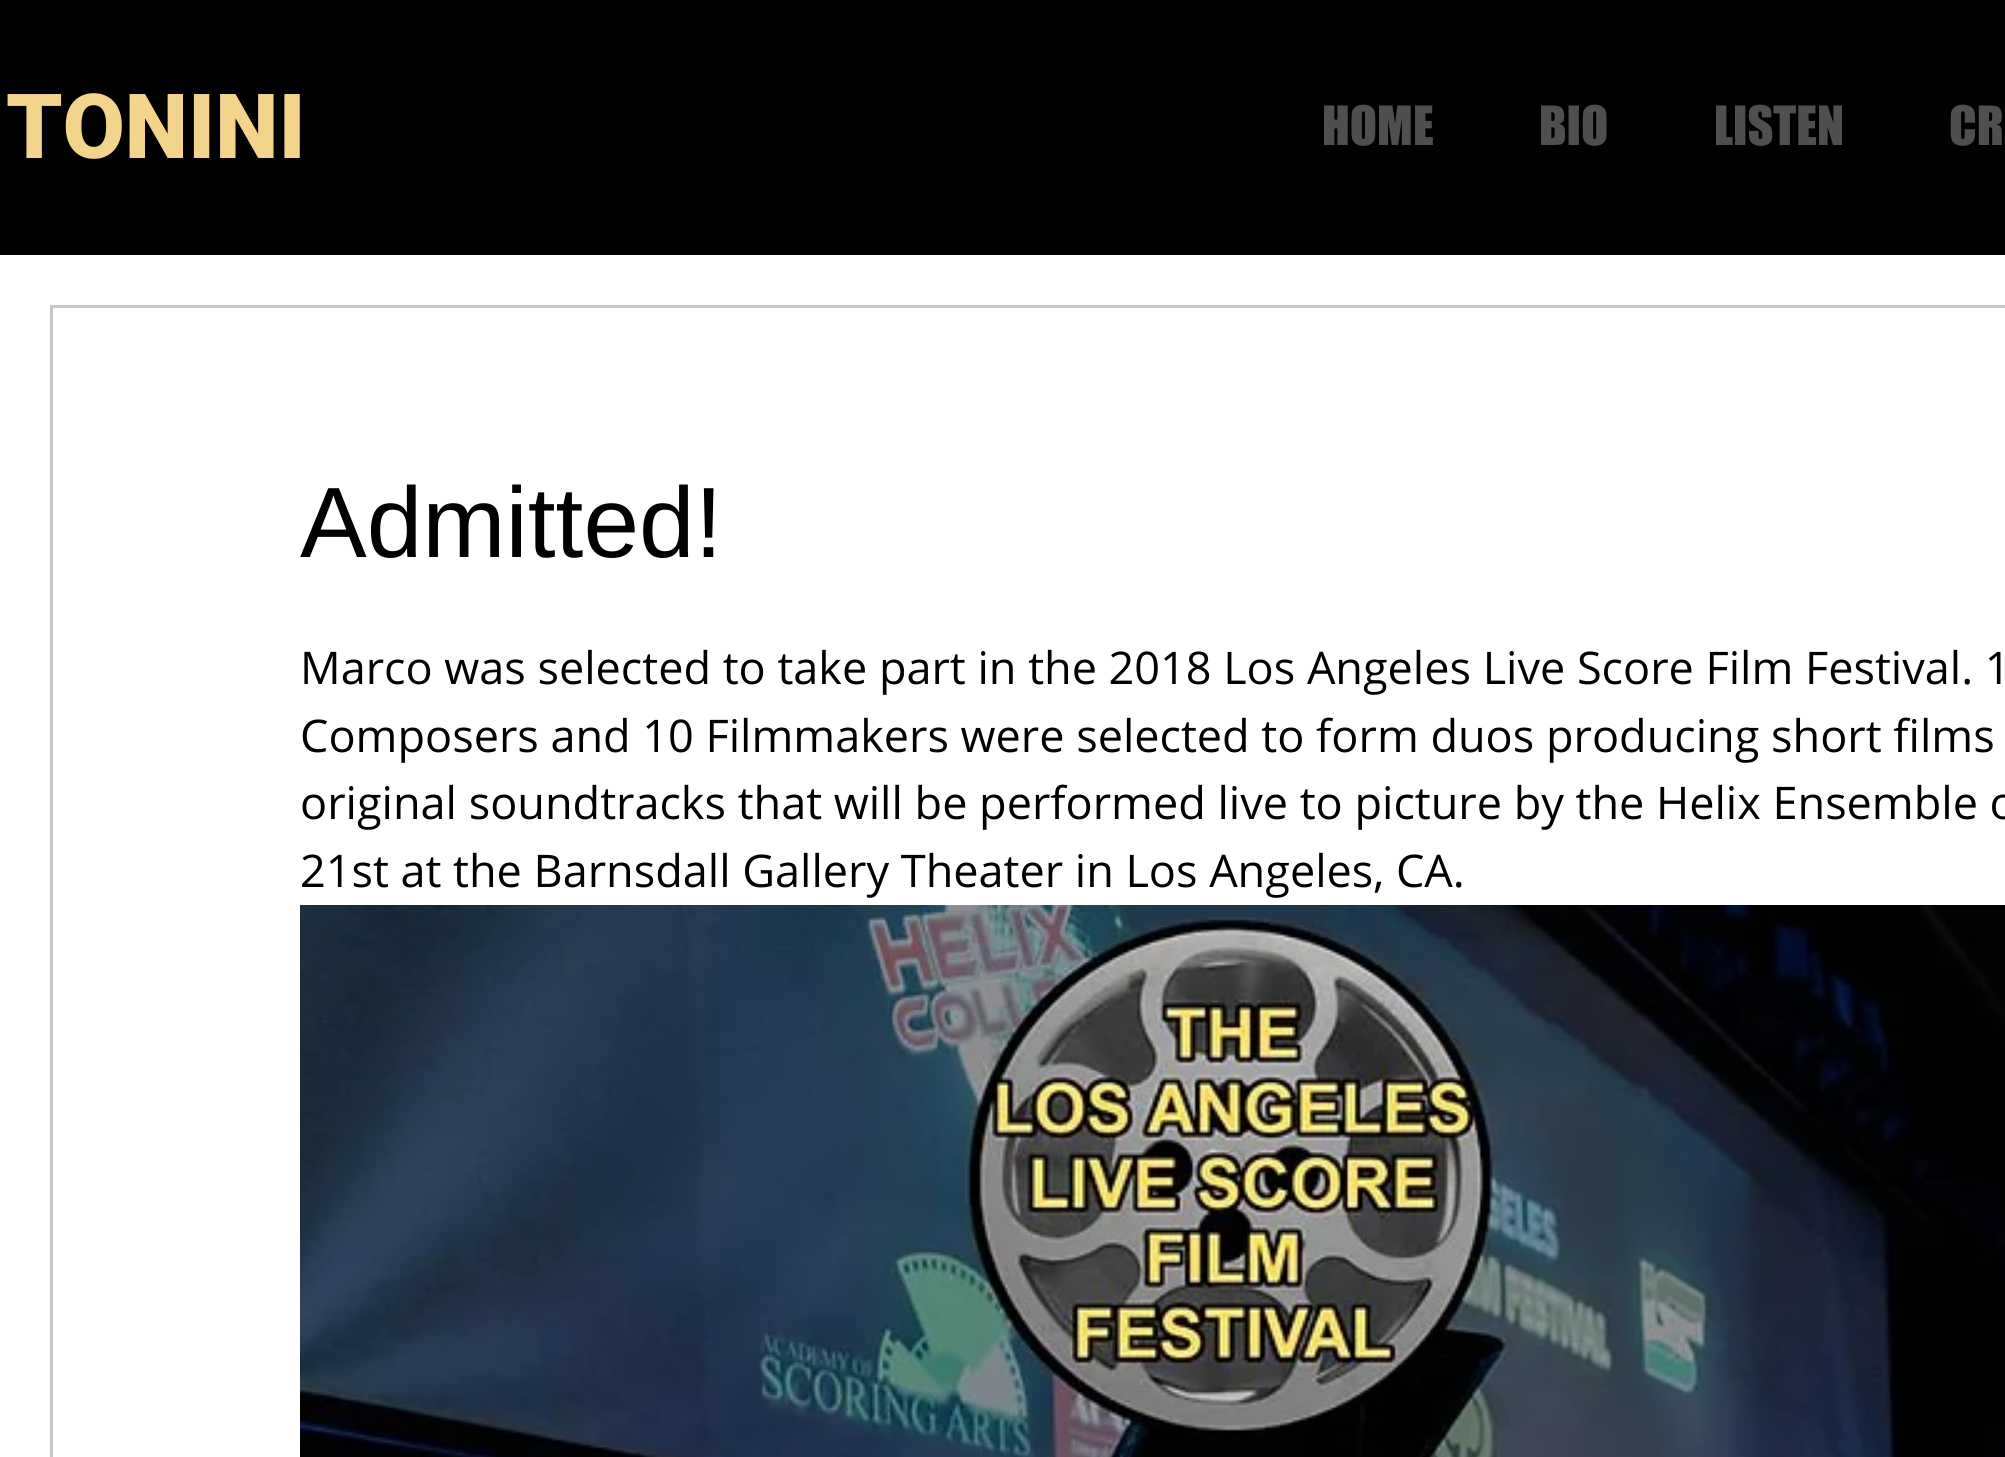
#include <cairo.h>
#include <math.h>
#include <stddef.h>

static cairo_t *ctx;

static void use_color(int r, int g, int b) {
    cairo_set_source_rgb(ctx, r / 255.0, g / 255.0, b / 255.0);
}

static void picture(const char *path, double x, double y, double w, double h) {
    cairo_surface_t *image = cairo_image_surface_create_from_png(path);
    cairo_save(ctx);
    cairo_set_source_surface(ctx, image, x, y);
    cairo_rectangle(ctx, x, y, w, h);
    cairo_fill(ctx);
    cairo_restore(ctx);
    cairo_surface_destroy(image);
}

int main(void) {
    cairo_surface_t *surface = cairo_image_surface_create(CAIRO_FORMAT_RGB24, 2005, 1457);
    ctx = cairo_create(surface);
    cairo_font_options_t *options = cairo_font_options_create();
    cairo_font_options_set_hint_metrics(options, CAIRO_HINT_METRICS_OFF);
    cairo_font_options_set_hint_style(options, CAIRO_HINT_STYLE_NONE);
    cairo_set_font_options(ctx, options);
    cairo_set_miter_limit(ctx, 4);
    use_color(0, 0, 0);
    cairo_paint(ctx);
    cairo_select_font_face(ctx, "Roboto Black", CAIRO_FONT_SLANT_NORMAL, CAIRO_FONT_WEIGHT_NORMAL);
    cairo_set_font_size(ctx, 90);
    use_color(244, 211, 139);
    cairo_move_to(ctx, 6, 158);
    cairo_show_text(ctx, "TONINI");
    cairo_select_font_face(ctx, "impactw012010", CAIRO_FONT_SLANT_NORMAL, CAIRO_FONT_WEIGHT_NORMAL);
    cairo_set_font_size(ctx, 50);
    use_color(79, 79, 79);
    cairo_move_to(ctx, 1322, 145);
    cairo_show_text(ctx, "HOME");
    cairo_move_to(ctx, 1539, 145);
    cairo_show_text(ctx, "BIO");
    cairo_move_to(ctx, 1714, 145);
    cairo_show_text(ctx, "LISTEN");
    cairo_move_to(ctx, 1949, 145);
    cairo_show_text(ctx, "CR");
    use_color(255, 255, 255);
    cairo_rectangle(ctx, 0, 255, 2005, 1202);
    cairo_fill(ctx);
    cairo_rectangle(ctx, 51.5, 306.5, 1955, 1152);
    use_color(199, 199, 199);
    cairo_set_line_width(ctx, 3);
    cairo_stroke(ctx);
    cairo_select_font_face(ctx, "Liberation Sans", CAIRO_FONT_SLANT_NORMAL, CAIRO_FONT_WEIGHT_NORMAL);
    cairo_set_font_size(ctx, 100);
    use_color(0, 0, 0);
    cairo_move_to(ctx, 300, 557);
    cairo_show_text(ctx, "Admitted!");
    cairo_select_font_face(ctx, "Open Sans", CAIRO_FONT_SLANT_NORMAL, CAIRO_FONT_WEIGHT_NORMAL);
    cairo_set_font_size(ctx, 45);
    cairo_move_to(ctx, 300, 684);
    cairo_show_text(ctx, "Marco was selected to take part in the 2018 Los Angeles Live Score Film Festival. 1");
    cairo_move_to(ctx, 300, 752);
    cairo_show_text(ctx, "Composers and 10 Filmmakers were selected to form duos producing short films");
    cairo_move_to(ctx, 300, 819);
    cairo_show_text(ctx, "original soundtracks that will be performed live to picture by the Helix Ensemble o");
    cairo_move_to(ctx, 300, 887);
    cairo_show_text(ctx, "21st at the Barnsdall Gallery Theater in Los Angeles, CA.");
    picture("img1.png", 300, 905, 1705, 552);
    cairo_surface_write_to_png(surface, "result.png");
    cairo_font_options_destroy(options);
    cairo_destroy(ctx);
    cairo_surface_destroy(surface);
    return 0;
}
